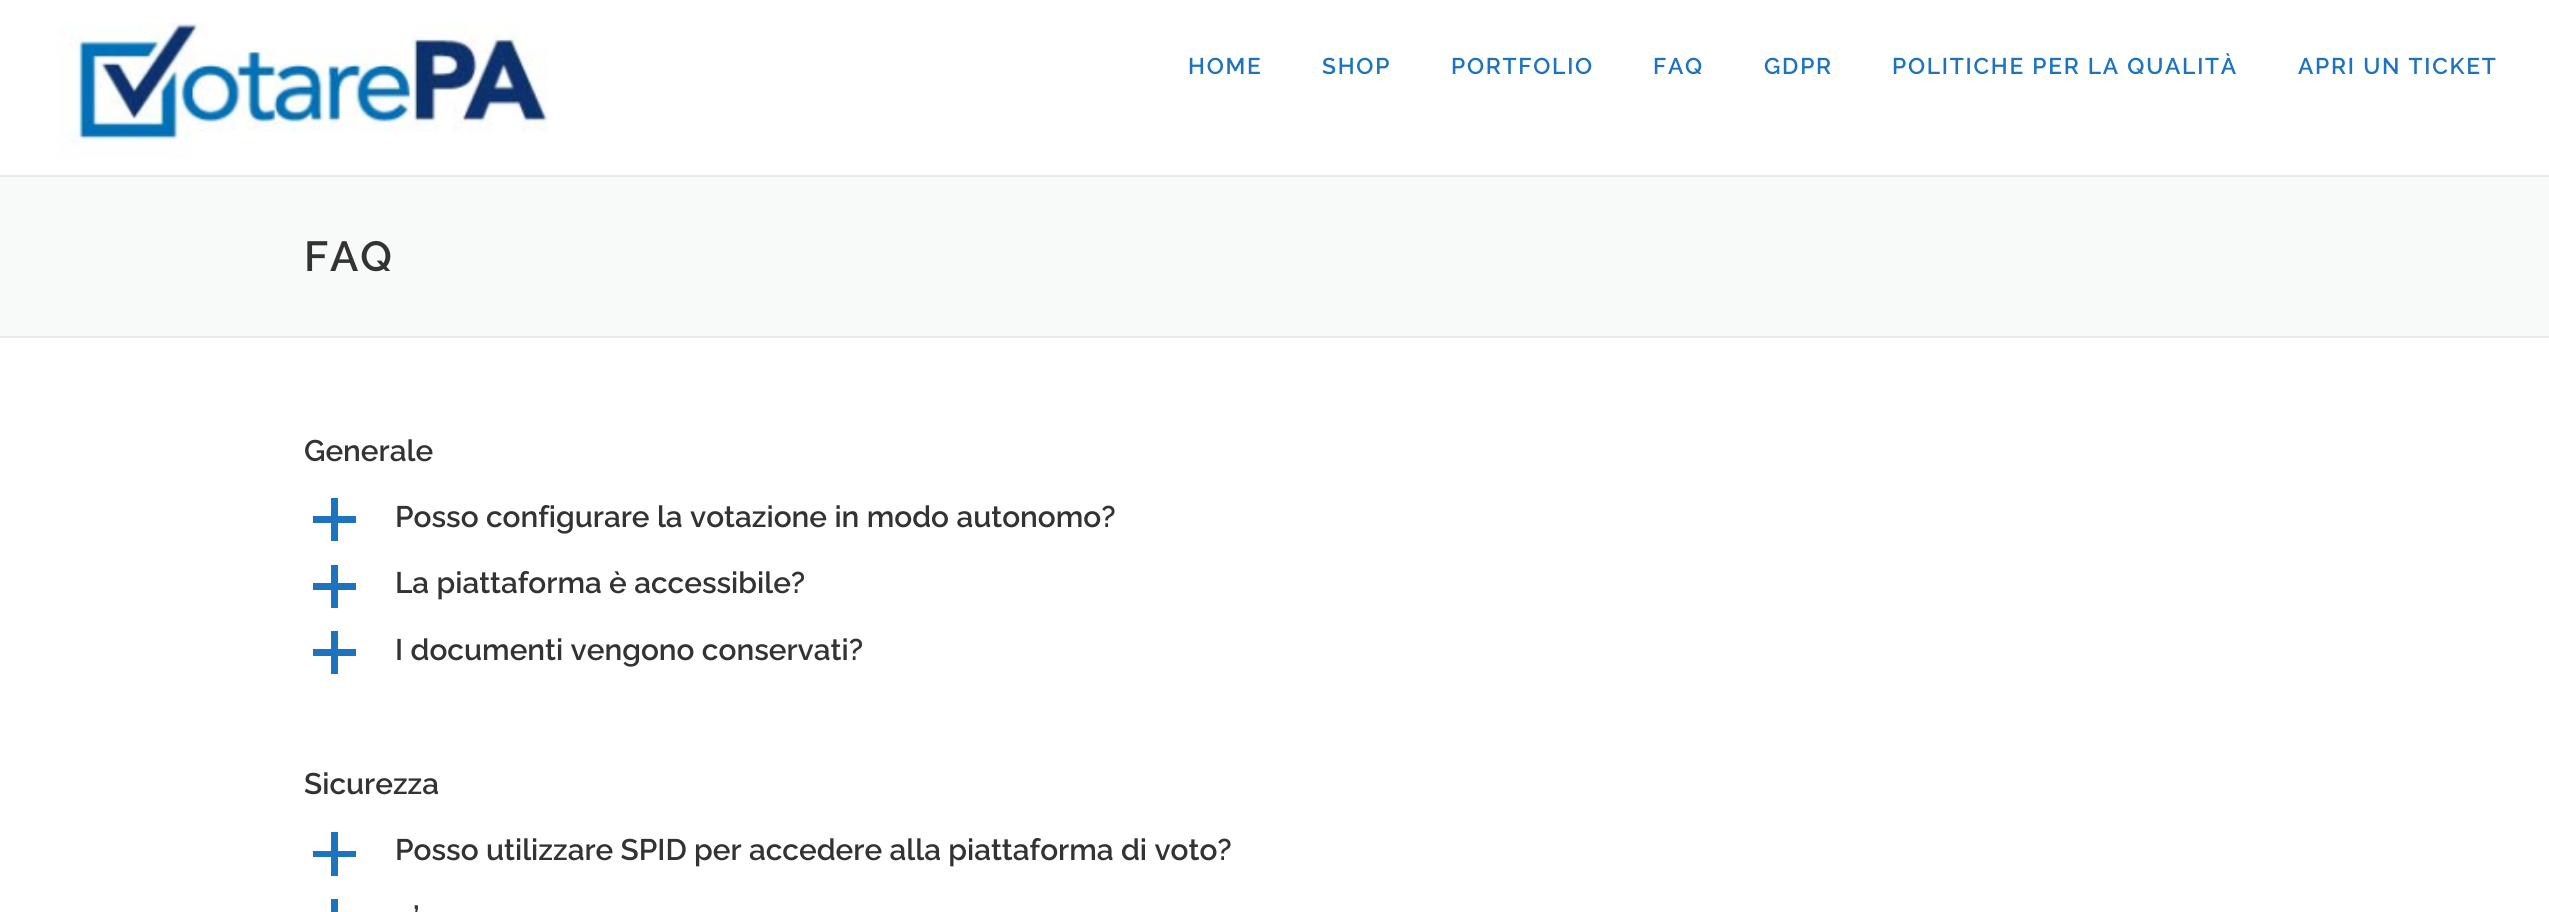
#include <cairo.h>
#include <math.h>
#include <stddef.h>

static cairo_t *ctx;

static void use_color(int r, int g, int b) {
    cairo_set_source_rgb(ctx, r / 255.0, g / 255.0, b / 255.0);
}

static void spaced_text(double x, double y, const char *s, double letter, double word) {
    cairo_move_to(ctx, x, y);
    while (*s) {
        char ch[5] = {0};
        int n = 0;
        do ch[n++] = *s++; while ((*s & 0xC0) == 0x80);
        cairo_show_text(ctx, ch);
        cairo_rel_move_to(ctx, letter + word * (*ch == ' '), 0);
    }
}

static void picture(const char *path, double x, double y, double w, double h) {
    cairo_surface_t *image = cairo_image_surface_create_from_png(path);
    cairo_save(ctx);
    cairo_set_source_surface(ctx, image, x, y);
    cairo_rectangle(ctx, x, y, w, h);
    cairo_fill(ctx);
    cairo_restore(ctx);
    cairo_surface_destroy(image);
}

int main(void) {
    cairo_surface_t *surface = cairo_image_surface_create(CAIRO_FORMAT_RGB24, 2549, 912);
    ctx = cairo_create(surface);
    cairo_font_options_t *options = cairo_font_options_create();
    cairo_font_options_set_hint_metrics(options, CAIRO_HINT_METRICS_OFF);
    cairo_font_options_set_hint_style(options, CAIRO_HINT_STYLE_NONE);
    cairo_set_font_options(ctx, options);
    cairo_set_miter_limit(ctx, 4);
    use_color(255, 255, 255);
    cairo_paint(ctx);
    picture("img1.png", 57, 22, 491, 136);
    cairo_select_font_face(ctx, "Raleway SemiBold", CAIRO_FONT_SLANT_NORMAL, CAIRO_FONT_WEIGHT_NORMAL);
    cairo_set_font_size(ctx, 22.75);
    use_color(30, 115, 190);
    spaced_text(1188, 74, "HOME", 1.75, 0);
    spaced_text(1322, 74, "SHOP", 1.75, 0);
    spaced_text(1451, 74, "PORTFOLIO", 1.75, 0);
    spaced_text(1653, 74, "FAQ", 1.75, 0);
    spaced_text(1764, 74, "GDPR", 1.75, 0);
    spaced_text(1892, 74, "POLITICHE PER LA QUALITÀ", 1.75, 0);
    spaced_text(2298, 74, "APRI UN TICKET", 1.75, 0);
    use_color(248, 249, 249);
    cairo_rectangle(ctx, 0, 177, 2549, 159);
    cairo_fill(ctx);
    use_color(233, 233, 233);
    cairo_rectangle(ctx, 0, 175, 2549, 2);
    cairo_fill(ctx);
    cairo_rectangle(ctx, 0, 336, 2549, 2);
    cairo_fill(ctx);
    cairo_set_font_size(ctx, 42);
    use_color(51, 51, 51);
    spaced_text(304, 271, "FAQ", 1.75, 0);
    cairo_set_font_size(ctx, 29.75);
    cairo_move_to(ctx, 304, 461);
    cairo_show_text(ctx, "Generale");
    use_color(30, 115, 190);
    cairo_new_path(ctx);
    cairo_move_to(ctx, 331, 498);
    cairo_line_to(ctx, 338, 498);
    cairo_line_to(ctx, 338, 541);
    cairo_line_to(ctx, 331, 541);
    cairo_close_path(ctx);
    cairo_move_to(ctx, 313, 516);
    cairo_line_to(ctx, 356, 516);
    cairo_line_to(ctx, 356, 523);
    cairo_line_to(ctx, 313, 523);
    cairo_close_path(ctx);
    cairo_fill(ctx);
    use_color(51, 51, 51);
    cairo_move_to(ctx, 395, 527);
    cairo_show_text(ctx, "Posso configurare la votazione in modo autonomo?");
    use_color(30, 115, 190);
    cairo_new_path(ctx);
    cairo_move_to(ctx, 331, 565);
    cairo_line_to(ctx, 338, 565);
    cairo_line_to(ctx, 338, 608);
    cairo_line_to(ctx, 331, 608);
    cairo_close_path(ctx);
    cairo_move_to(ctx, 313, 583);
    cairo_line_to(ctx, 356, 583);
    cairo_line_to(ctx, 356, 590);
    cairo_line_to(ctx, 313, 590);
    cairo_close_path(ctx);
    cairo_fill(ctx);
    use_color(51, 51, 51);
    cairo_move_to(ctx, 395, 593);
    cairo_show_text(ctx, "La piattaforma è accessibile?");
    use_color(30, 115, 190);
    cairo_new_path(ctx);
    cairo_move_to(ctx, 331, 631);
    cairo_line_to(ctx, 338, 631);
    cairo_line_to(ctx, 338, 674);
    cairo_line_to(ctx, 331, 674);
    cairo_close_path(ctx);
    cairo_move_to(ctx, 313, 649);
    cairo_line_to(ctx, 356, 649);
    cairo_line_to(ctx, 356, 656);
    cairo_line_to(ctx, 313, 656);
    cairo_close_path(ctx);
    cairo_fill(ctx);
    use_color(51, 51, 51);
    cairo_move_to(ctx, 395, 660);
    cairo_show_text(ctx, "I documenti vengono conservati?");
    cairo_move_to(ctx, 304, 794);
    cairo_show_text(ctx, "Sicurezza");
    use_color(30, 115, 190);
    cairo_new_path(ctx);
    cairo_move_to(ctx, 331, 832);
    cairo_line_to(ctx, 338, 832);
    cairo_line_to(ctx, 338, 876);
    cairo_line_to(ctx, 331, 876);
    cairo_close_path(ctx);
    cairo_move_to(ctx, 313, 851);
    cairo_line_to(ctx, 356, 851);
    cairo_line_to(ctx, 356, 857);
    cairo_line_to(ctx, 313, 857);
    cairo_close_path(ctx);
    cairo_fill(ctx);
    use_color(51, 51, 51);
    cairo_move_to(ctx, 395, 860);
    cairo_show_text(ctx, "Posso utilizzare SPID per accedere alla piattaforma di voto?");
    use_color(30, 115, 190);
    cairo_new_path(ctx);
    cairo_move_to(ctx, 331, 899);
    cairo_line_to(ctx, 338, 899);
    cairo_line_to(ctx, 338, 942);
    cairo_line_to(ctx, 331, 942);
    cairo_close_path(ctx);
    cairo_move_to(ctx, 313, 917);
    cairo_line_to(ctx, 356, 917);
    cairo_line_to(ctx, 356, 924);
    cairo_line_to(ctx, 313, 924);
    cairo_close_path(ctx);
    cairo_fill(ctx);
    use_color(51, 51, 51);
    cairo_move_to(ctx, 413, 927);
    cairo_show_text(ctx, "’");
    cairo_surface_write_to_png(surface, "result.png");
    cairo_font_options_destroy(options);
    cairo_destroy(ctx);
    cairo_surface_destroy(surface);
    return 0;
}
